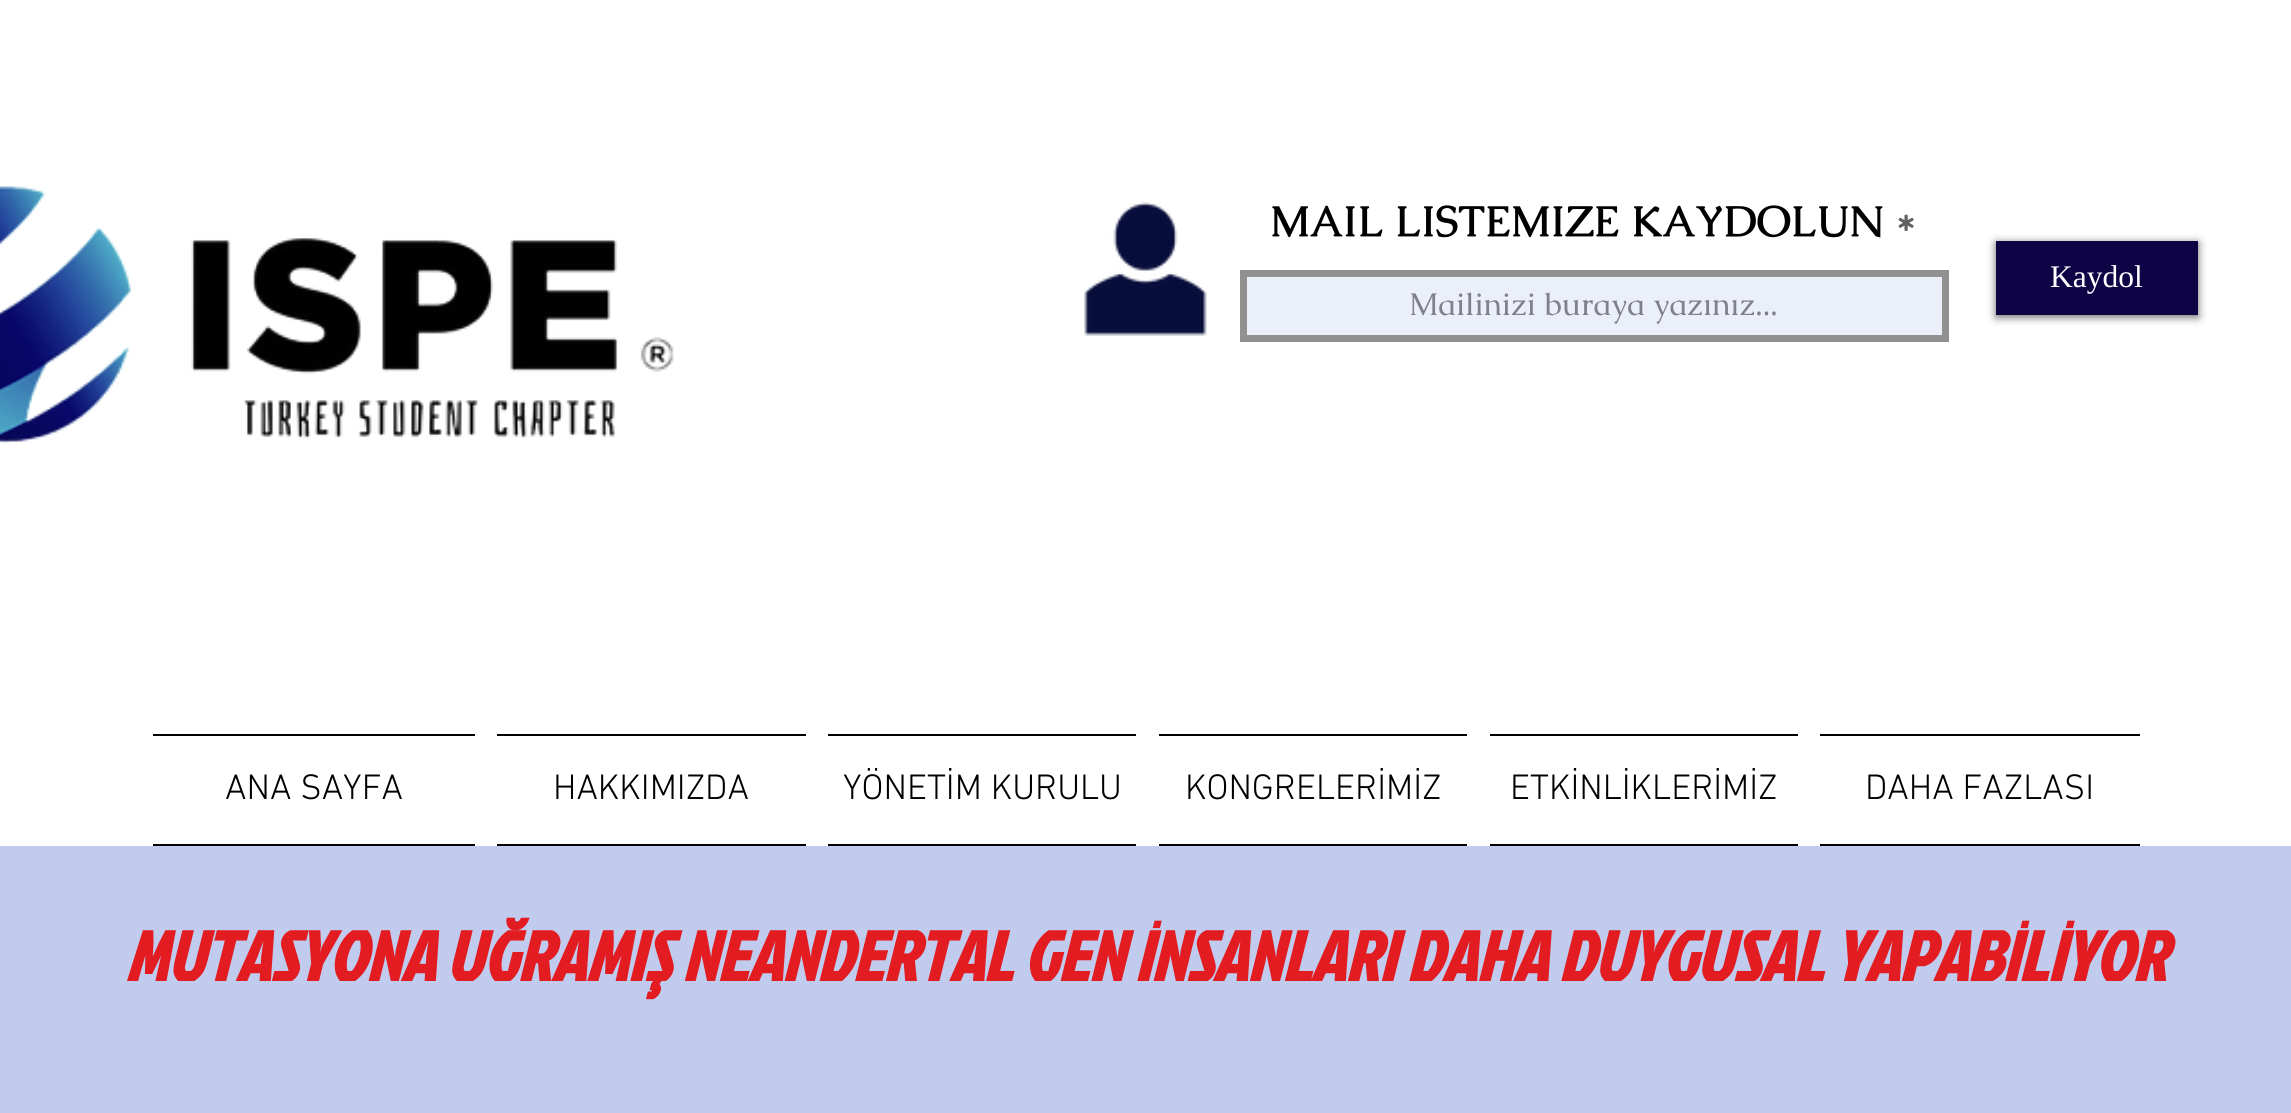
#include <cairo.h>
#include <math.h>
#include <stddef.h>

static cairo_t *ctx;

static void use_color(int r, int g, int b) {
    cairo_set_source_rgb(ctx, r / 255.0, g / 255.0, b / 255.0);
}

static void round_rect(double x, double y, double w, double h, double r) {
    cairo_new_sub_path(ctx);
    cairo_arc(ctx, x + w - r, y + h - r, r, 0, M_PI / 2);
    cairo_arc(ctx, x + r, y + h - r, r, M_PI / 2, M_PI);
    cairo_arc(ctx, x + r, y + r, r, M_PI, 1.5 * M_PI);
    cairo_arc(ctx, x + w - r, y + r, r, 1.5 * M_PI, 2 * M_PI);
    cairo_close_path(ctx);
}

static void shadow(double x, double y, double w, double h, double r, double blur, double alpha) {
    cairo_push_group_with_content(ctx, CAIRO_CONTENT_ALPHA);
    cairo_set_operator(ctx, CAIRO_OPERATOR_SOURCE);
    for (int i = 15; i >= -15 && fmin(w, h) + blur * i / 3 > 0; i -= 2) {
        double e = blur * i / 6;
        cairo_set_source_rgba(ctx, 0, 0, 0, alpha * erfc((i - 1) / 8.5) / 2);
        round_rect(x - e, y - e, w + 2 * e, h + 2 * e, fmax(0, fmin(r + e + blur * .6, fmin(w, h) / 2 + e)));
        cairo_fill(ctx);
    }
    cairo_pattern_t *soft = cairo_pop_group(ctx);
    cairo_mask(ctx, soft);
    cairo_pattern_destroy(soft);
}

static void picture(const char *path, double x, double y, double w, double h) {
    cairo_surface_t *image = cairo_image_surface_create_from_png(path);
    cairo_save(ctx);
    cairo_set_source_surface(ctx, image, x, y);
    cairo_rectangle(ctx, x, y, w, h);
    cairo_fill(ctx);
    cairo_restore(ctx);
    cairo_surface_destroy(image);
}

int main(void) {
    cairo_surface_t *surface = cairo_image_surface_create(CAIRO_FORMAT_RGB24, 2291, 1113);
    ctx = cairo_create(surface);
    cairo_font_options_t *options = cairo_font_options_create();
    cairo_font_options_set_hint_metrics(options, CAIRO_HINT_METRICS_OFF);
    cairo_font_options_set_hint_style(options, CAIRO_HINT_STYLE_NONE);
    cairo_set_font_options(ctx, options);
    cairo_set_miter_limit(ctx, 4);
    use_color(192, 203, 237);
    cairo_paint(ctx);
    use_color(255, 255, 255);
    cairo_rectangle(ctx, 0, 0, 2291, 846);
    cairo_fill(ctx);
    picture("img1.png", 0, 186, 674, 258);
    picture("img2.png", 1084, 202, 123, 134);
    cairo_select_font_face(ctx, "Caudex", CAIRO_FONT_SLANT_NORMAL, CAIRO_FONT_WEIGHT_BOLD);
    cairo_set_font_size(ctx, 42.75);
    use_color(0, 0, 0);
    cairo_move_to(ctx, 1270, 236);
    cairo_show_text(ctx, "MAIL LISTEMIZE KAYDOLUN");
    use_color(97, 97, 95);
    cairo_move_to(ctx, 1895, 236);
    cairo_show_text(ctx, "*");
    use_color(235, 239, 249);
    cairo_rectangle(ctx, 1243.5, 273.5, 702, 65);
    cairo_fill_preserve(ctx);
    use_color(145, 145, 145);
    cairo_set_line_width(ctx, 7);
    cairo_stroke(ctx);
    cairo_select_font_face(ctx, "Caudex", CAIRO_FONT_SLANT_NORMAL, CAIRO_FONT_WEIGHT_NORMAL);
    cairo_set_font_size(ctx, 31.5);
    use_color(127, 128, 138);
    cairo_move_to(ctx, 1409, 315);
    cairo_show_text(ctx, "Mailinizi buraya yazınız...");
    use_color(0, 0, 0);
    shadow(1996, 243, 202, 74, 0, 4.5, 0.6);
    use_color(14, 3, 69);
    cairo_rectangle(ctx, 1996, 241, 202, 74);
    cairo_fill(ctx);
    cairo_select_font_face(ctx, "Liberation Serif", CAIRO_FONT_SLANT_NORMAL, CAIRO_FONT_WEIGHT_NORMAL);
    use_color(255, 255, 255);
    cairo_move_to(ctx, 2050, 287);
    cairo_show_text(ctx, "Kaydol");
    use_color(0, 0, 0);
    cairo_rectangle(ctx, 153, 734, 322, 2);
    cairo_fill(ctx);
    cairo_rectangle(ctx, 153, 844, 322, 2);
    cairo_fill(ctx);
    cairo_select_font_face(ctx, "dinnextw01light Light", CAIRO_FONT_SLANT_NORMAL, CAIRO_FONT_WEIGHT_NORMAL);
    cairo_set_font_size(ctx, 36);
    cairo_move_to(ctx, 225, 799);
    cairo_show_text(ctx, "ANA SAYFA");
    cairo_rectangle(ctx, 497, 734, 309, 2);
    cairo_fill(ctx);
    cairo_rectangle(ctx, 497, 844, 309, 2);
    cairo_fill(ctx);
    cairo_move_to(ctx, 553, 799);
    cairo_show_text(ctx, "HAKKIMIZDA");
    cairo_rectangle(ctx, 828, 734, 308, 2);
    cairo_fill(ctx);
    cairo_rectangle(ctx, 828, 844, 308, 2);
    cairo_fill(ctx);
    cairo_move_to(ctx, 843, 799);
    cairo_show_text(ctx, "YÖNETİM KURULU");
    cairo_rectangle(ctx, 1159, 734, 308, 2);
    cairo_fill(ctx);
    cairo_rectangle(ctx, 1159, 844, 308, 2);
    cairo_fill(ctx);
    cairo_move_to(ctx, 1185, 799);
    cairo_show_text(ctx, "KONGRELERİMİZ");
    cairo_rectangle(ctx, 1490, 734, 308, 2);
    cairo_fill(ctx);
    cairo_rectangle(ctx, 1490, 844, 308, 2);
    cairo_fill(ctx);
    cairo_move_to(ctx, 1510, 799);
    cairo_show_text(ctx, "ETKİNLİKLERİMİZ");
    cairo_rectangle(ctx, 1820, 734, 320, 2);
    cairo_fill(ctx);
    cairo_rectangle(ctx, 1820, 844, 320, 2);
    cairo_fill(ctx);
    cairo_move_to(ctx, 1865, 799);
    cairo_show_text(ctx, "DAHA FAZLASI");
    cairo_select_font_face(ctx, "Jockey One", CAIRO_FONT_SLANT_ITALIC, CAIRO_FONT_WEIGHT_BOLD);
    cairo_set_font_size(ctx, 69.75);
    use_color(226, 28, 33);
    cairo_move_to(ctx, 125, 981);
    cairo_show_text(ctx, "MUTASYONA UĞRAMIŞ NEANDERTAL GEN İNSANLARI DAHA DUYGUSAL YAPABİLİYOR");
    cairo_surface_write_to_png(surface, "result.png");
    cairo_font_options_destroy(options);
    cairo_destroy(ctx);
    cairo_surface_destroy(surface);
    return 0;
}
